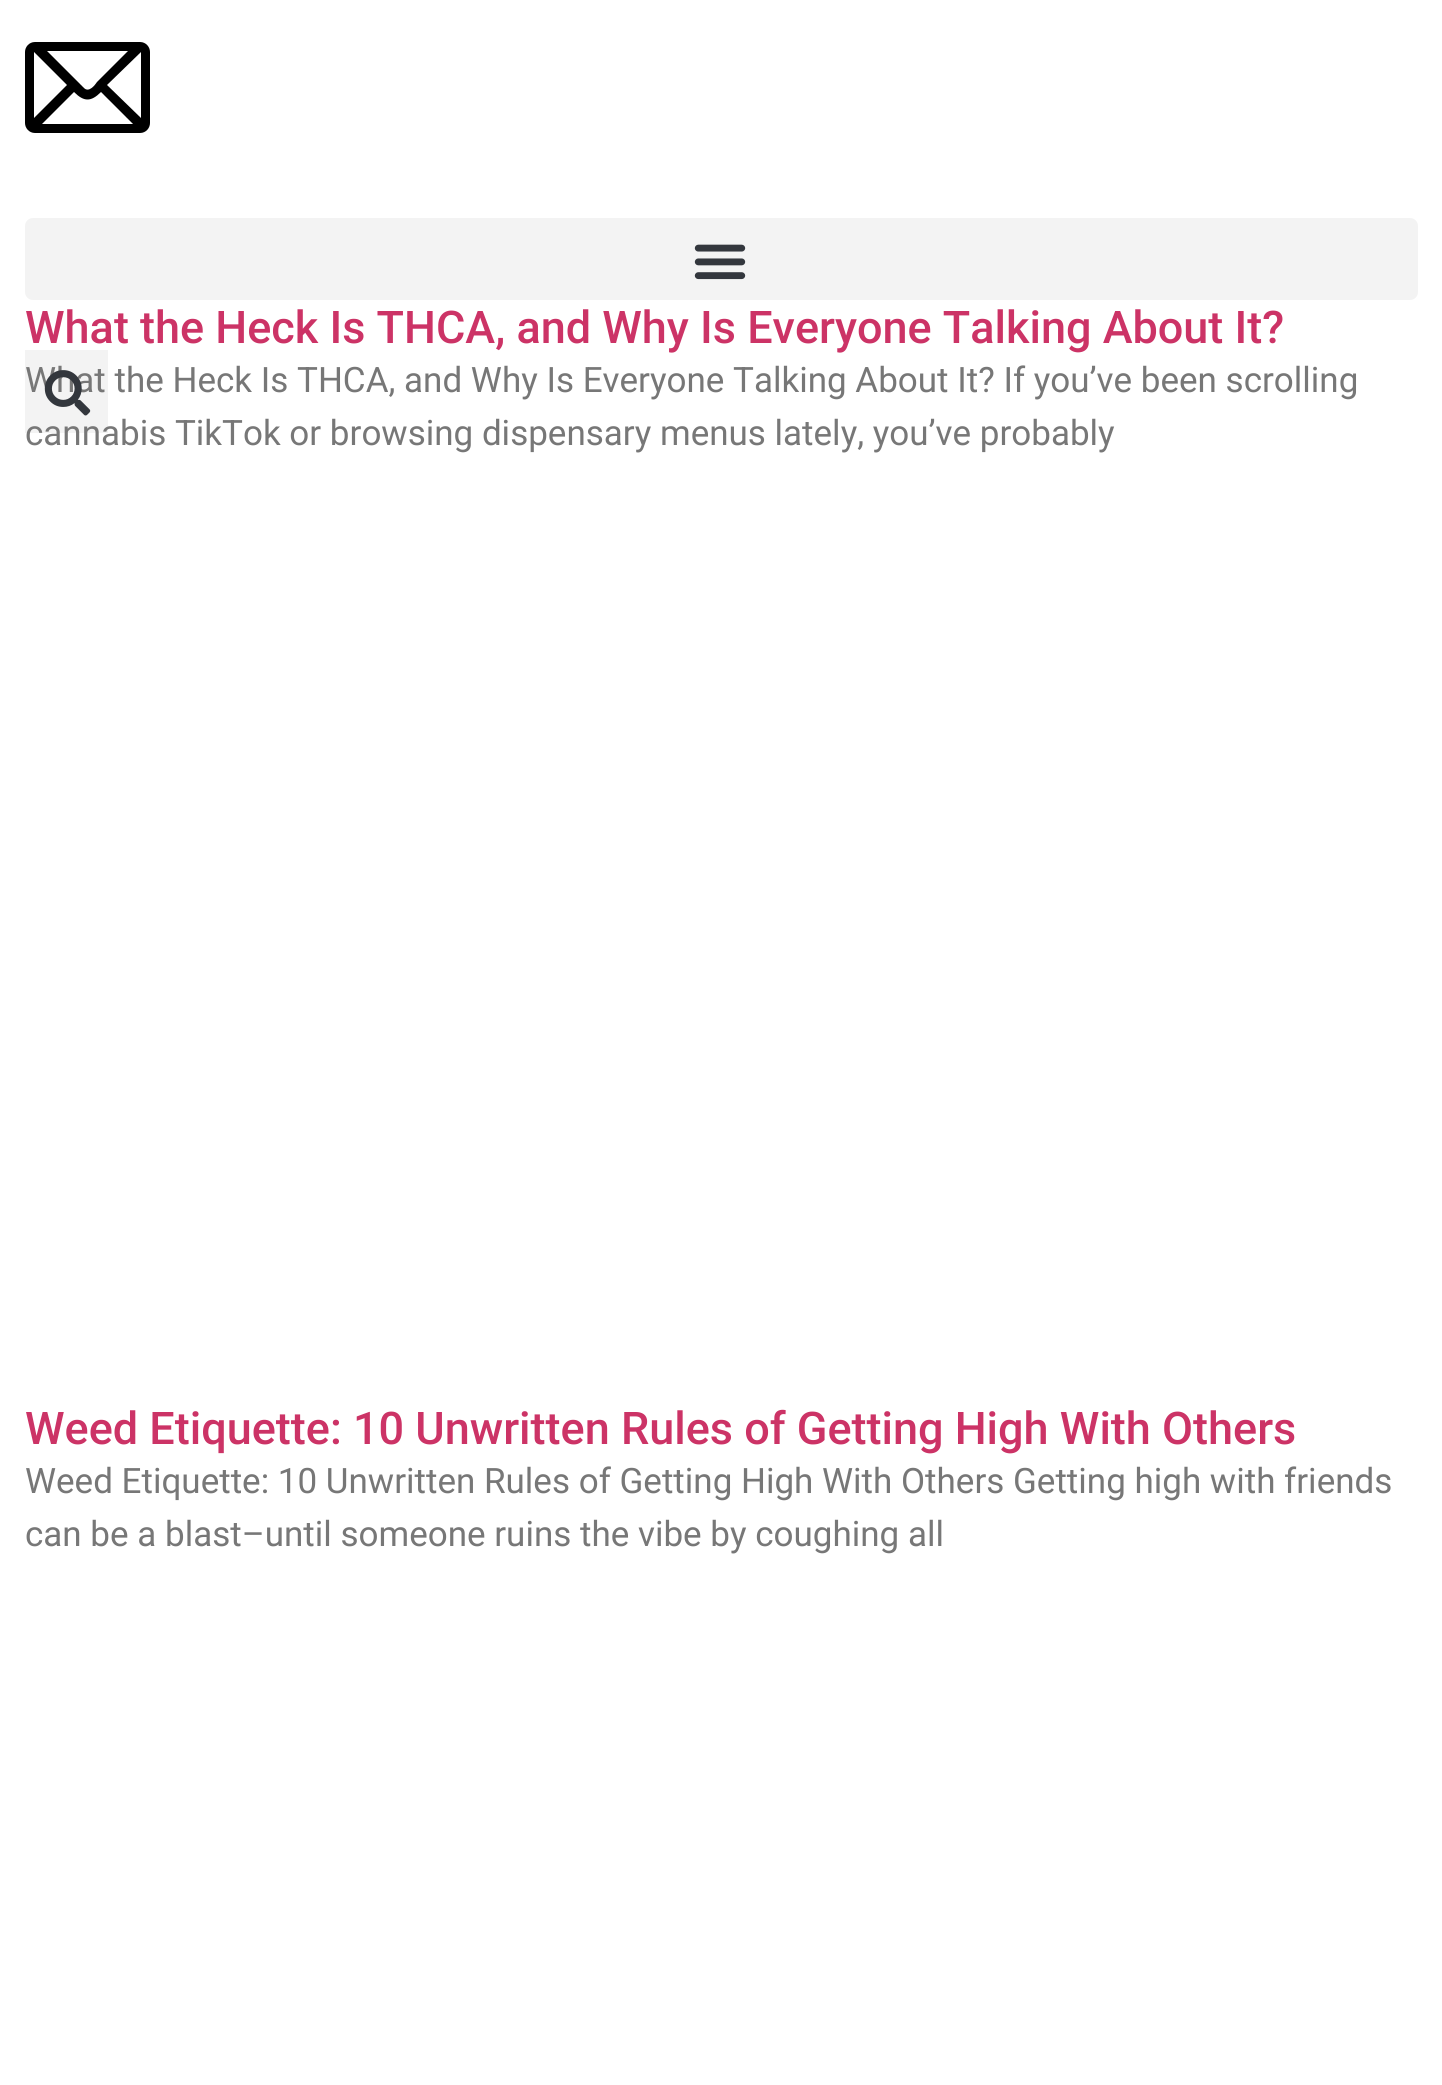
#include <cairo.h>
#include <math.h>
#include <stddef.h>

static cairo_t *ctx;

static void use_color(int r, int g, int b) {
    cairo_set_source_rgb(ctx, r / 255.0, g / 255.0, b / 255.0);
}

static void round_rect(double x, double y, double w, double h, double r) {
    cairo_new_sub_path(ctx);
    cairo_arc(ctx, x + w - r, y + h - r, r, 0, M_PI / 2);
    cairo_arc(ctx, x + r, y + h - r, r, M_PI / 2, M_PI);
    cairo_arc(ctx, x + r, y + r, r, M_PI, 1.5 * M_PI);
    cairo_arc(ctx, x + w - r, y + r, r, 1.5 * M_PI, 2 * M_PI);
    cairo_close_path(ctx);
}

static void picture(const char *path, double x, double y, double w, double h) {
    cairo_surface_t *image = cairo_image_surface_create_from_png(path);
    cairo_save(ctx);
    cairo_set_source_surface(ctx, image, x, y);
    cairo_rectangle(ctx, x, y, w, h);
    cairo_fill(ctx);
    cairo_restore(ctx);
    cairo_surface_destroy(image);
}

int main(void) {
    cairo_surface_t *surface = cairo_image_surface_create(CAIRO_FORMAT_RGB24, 1442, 2085);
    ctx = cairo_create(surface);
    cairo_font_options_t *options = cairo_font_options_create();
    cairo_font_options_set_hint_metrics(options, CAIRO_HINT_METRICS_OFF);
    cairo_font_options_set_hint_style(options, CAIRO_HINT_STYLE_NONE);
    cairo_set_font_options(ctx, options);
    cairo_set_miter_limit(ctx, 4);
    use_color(255, 255, 255);
    cairo_paint(ctx);
    use_color(0, 0, 0);
    cairo_new_path(ctx);
    cairo_move_to(ctx, 35, 133);
    cairo_curve_to(ctx, 29, 133, 25, 128, 25, 123);
    cairo_line_to(ctx, 25, 52);
    cairo_curve_to(ctx, 25, 47, 29, 42, 35, 42);
    cairo_line_to(ctx, 140, 42);
    cairo_curve_to(ctx, 146, 42, 150, 47, 150, 52);
    cairo_line_to(ctx, 150, 123);
    cairo_curve_to(ctx, 150, 128, 146, 133, 140, 133);
    cairo_close_path(ctx);
    cairo_move_to(ctx, 133, 124);
    cairo_line_to(ctx, 101, 92);
    cairo_curve_to(ctx, 91, 102, 84, 102, 74, 92);
    cairo_line_to(ctx, 42, 124);
    cairo_close_path(ctx);
    cairo_move_to(ctx, 141, 118);
    cairo_line_to(ctx, 141, 52);
    cairo_line_to(ctx, 107, 85);
    cairo_close_path(ctx);
    cairo_move_to(ctx, 34, 118);
    cairo_line_to(ctx, 67, 85);
    cairo_line_to(ctx, 34, 52);
    cairo_close_path(ctx);
    cairo_move_to(ctx, 84, 88);
    cairo_curve_to(ctx, 89, 93, 95, 85, 97, 82);
    cairo_line_to(ctx, 128, 51);
    cairo_line_to(ctx, 47, 51);
    cairo_close_path(ctx);
    cairo_fill(ctx);
    use_color(243, 243, 243);
    round_rect(25, 218, 1393, 82, 8);
    cairo_fill(ctx);
    picture("img1.png", 694, 244, 52, 36);
    cairo_set_source_rgba(ctx, 0, 0, 0, 0.05);
    cairo_rectangle(ctx, 25, 350, 83, 83);
    cairo_fill(ctx);
    cairo_select_font_face(ctx, "Roboto", CAIRO_FONT_SLANT_NORMAL, CAIRO_FONT_WEIGHT_NORMAL);
    cairo_set_font_size(ctx, 35);
    use_color(119, 119, 119);
    cairo_move_to(ctx, 25, 392);
    cairo_show_text(ctx, "What the Heck Is THCA, and Why Is Everyone Talking About It? If you’ve been scrolling");
    picture("img2.png", 44, 370, 47, 46);
    cairo_select_font_face(ctx, "Roboto Medium", CAIRO_FONT_SLANT_NORMAL, CAIRO_FONT_WEIGHT_NORMAL);
    cairo_set_font_size(ctx, 45);
    use_color(204, 51, 102);
    cairo_move_to(ctx, 25, 343);
    cairo_show_text(ctx, "What the Heck Is THCA, and Why Is Everyone Talking About It?");
    cairo_select_font_face(ctx, "Roboto", CAIRO_FONT_SLANT_NORMAL, CAIRO_FONT_WEIGHT_NORMAL);
    cairo_set_font_size(ctx, 35);
    use_color(119, 119, 119);
    cairo_move_to(ctx, 25, 445);
    cairo_show_text(ctx, "cannabis TikTok or browsing dispensary menus lately, you’ve probably");
    cairo_select_font_face(ctx, "Roboto Medium", CAIRO_FONT_SLANT_NORMAL, CAIRO_FONT_WEIGHT_NORMAL);
    cairo_set_font_size(ctx, 45);
    use_color(204, 51, 102);
    cairo_move_to(ctx, 25, 1444);
    cairo_show_text(ctx, "Weed Etiquette: 10 Unwritten Rules of Getting High With Others");
    cairo_select_font_face(ctx, "Roboto", CAIRO_FONT_SLANT_NORMAL, CAIRO_FONT_WEIGHT_NORMAL);
    cairo_set_font_size(ctx, 35);
    use_color(119, 119, 119);
    cairo_move_to(ctx, 25, 1493);
    cairo_show_text(ctx, "Weed Etiquette: 10 Unwritten Rules of Getting High With Others Getting high with friends");
    cairo_move_to(ctx, 25, 1546);
    cairo_show_text(ctx, "can be a blast–until someone ruins the vibe by coughing all");
    cairo_surface_write_to_png(surface, "result.png");
    cairo_font_options_destroy(options);
    cairo_destroy(ctx);
    cairo_surface_destroy(surface);
    return 0;
}
